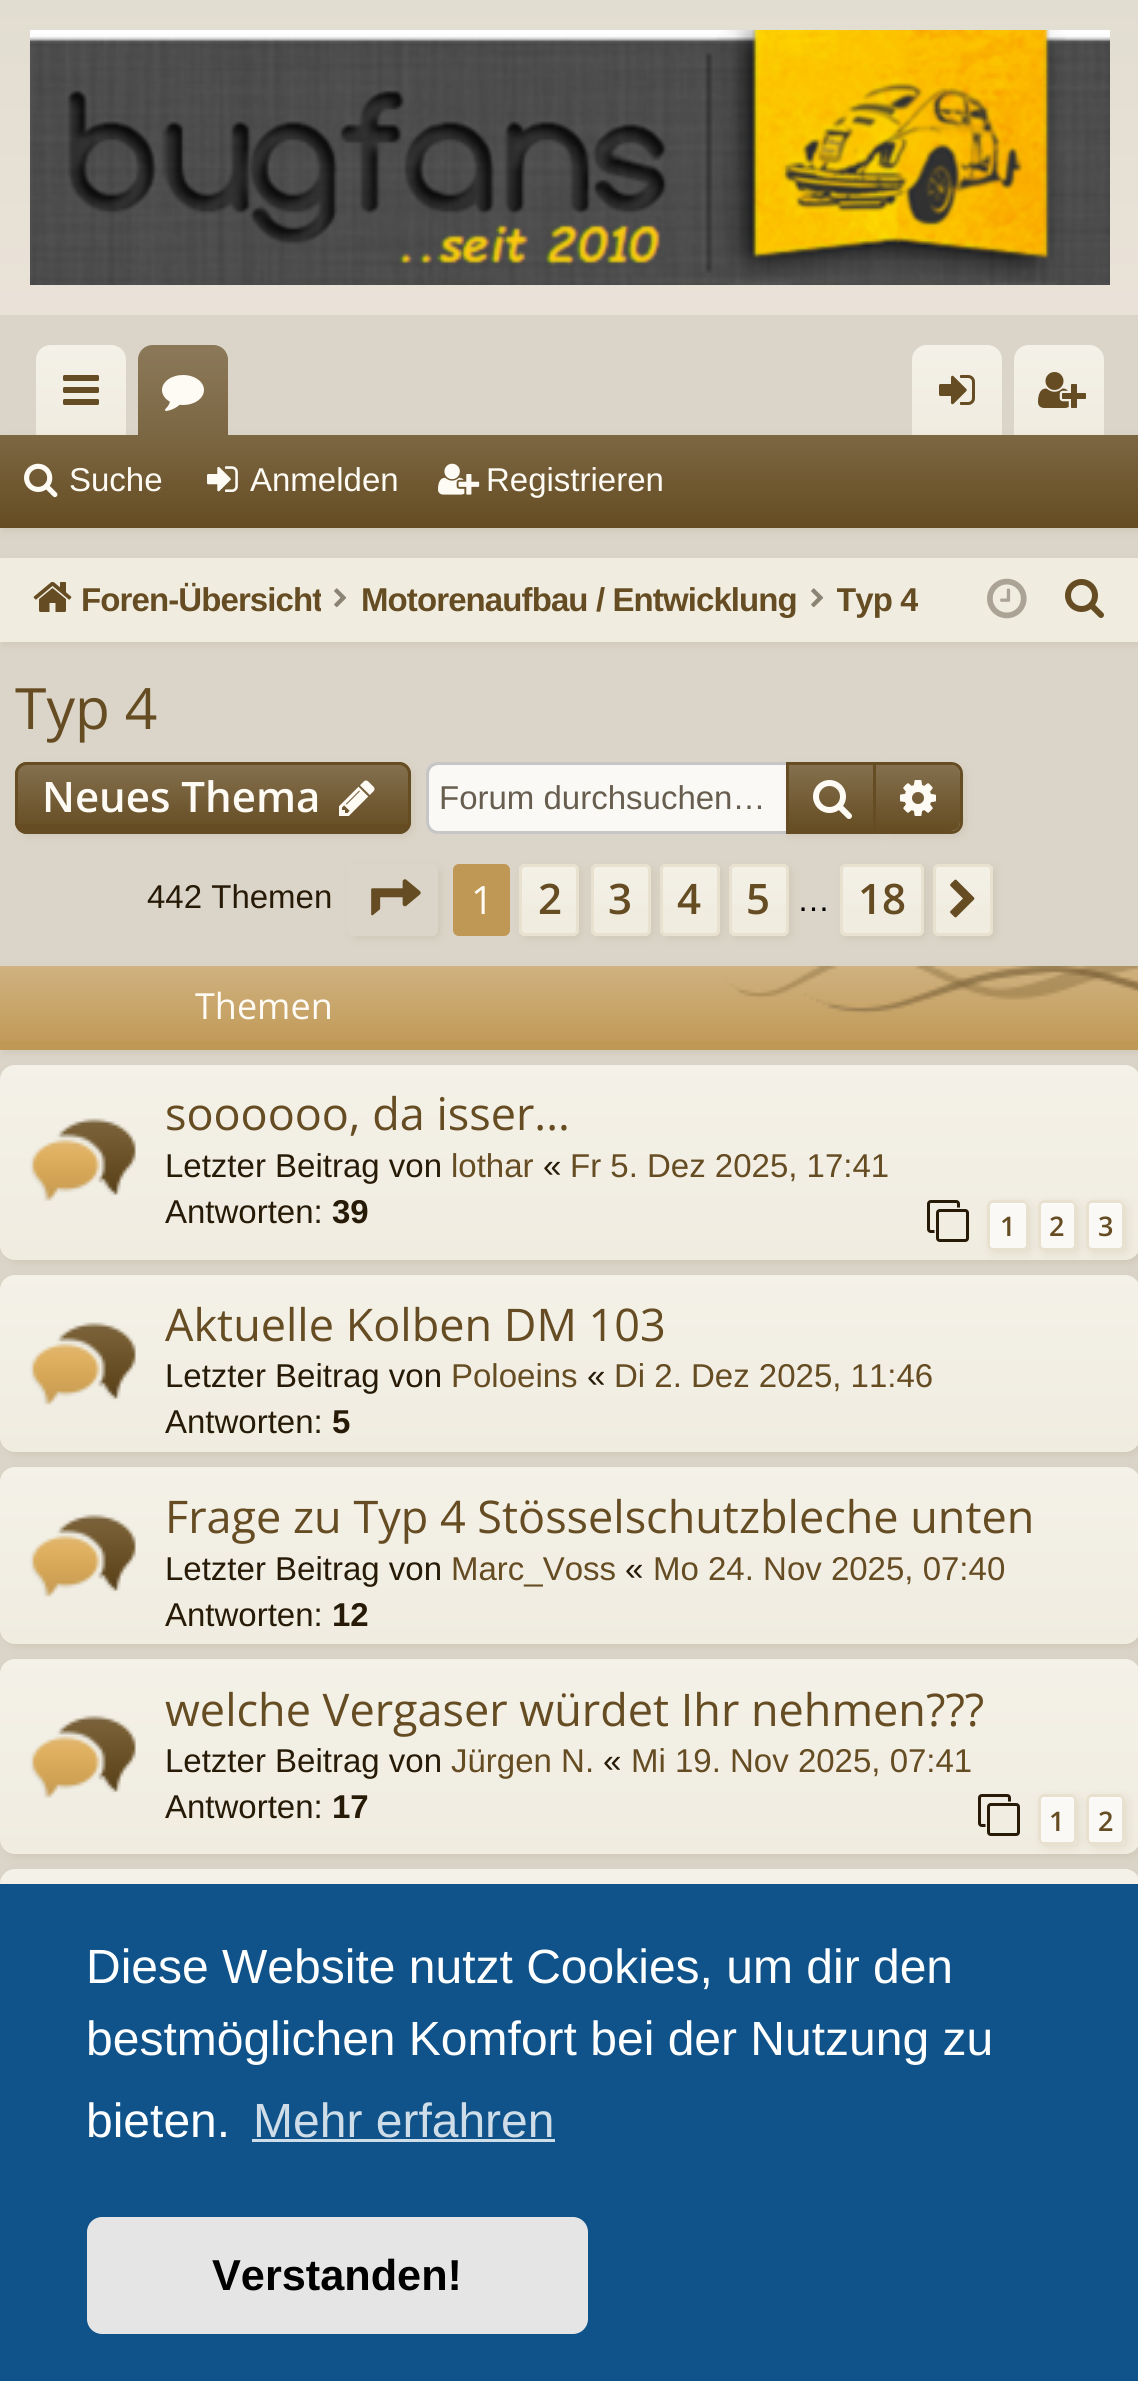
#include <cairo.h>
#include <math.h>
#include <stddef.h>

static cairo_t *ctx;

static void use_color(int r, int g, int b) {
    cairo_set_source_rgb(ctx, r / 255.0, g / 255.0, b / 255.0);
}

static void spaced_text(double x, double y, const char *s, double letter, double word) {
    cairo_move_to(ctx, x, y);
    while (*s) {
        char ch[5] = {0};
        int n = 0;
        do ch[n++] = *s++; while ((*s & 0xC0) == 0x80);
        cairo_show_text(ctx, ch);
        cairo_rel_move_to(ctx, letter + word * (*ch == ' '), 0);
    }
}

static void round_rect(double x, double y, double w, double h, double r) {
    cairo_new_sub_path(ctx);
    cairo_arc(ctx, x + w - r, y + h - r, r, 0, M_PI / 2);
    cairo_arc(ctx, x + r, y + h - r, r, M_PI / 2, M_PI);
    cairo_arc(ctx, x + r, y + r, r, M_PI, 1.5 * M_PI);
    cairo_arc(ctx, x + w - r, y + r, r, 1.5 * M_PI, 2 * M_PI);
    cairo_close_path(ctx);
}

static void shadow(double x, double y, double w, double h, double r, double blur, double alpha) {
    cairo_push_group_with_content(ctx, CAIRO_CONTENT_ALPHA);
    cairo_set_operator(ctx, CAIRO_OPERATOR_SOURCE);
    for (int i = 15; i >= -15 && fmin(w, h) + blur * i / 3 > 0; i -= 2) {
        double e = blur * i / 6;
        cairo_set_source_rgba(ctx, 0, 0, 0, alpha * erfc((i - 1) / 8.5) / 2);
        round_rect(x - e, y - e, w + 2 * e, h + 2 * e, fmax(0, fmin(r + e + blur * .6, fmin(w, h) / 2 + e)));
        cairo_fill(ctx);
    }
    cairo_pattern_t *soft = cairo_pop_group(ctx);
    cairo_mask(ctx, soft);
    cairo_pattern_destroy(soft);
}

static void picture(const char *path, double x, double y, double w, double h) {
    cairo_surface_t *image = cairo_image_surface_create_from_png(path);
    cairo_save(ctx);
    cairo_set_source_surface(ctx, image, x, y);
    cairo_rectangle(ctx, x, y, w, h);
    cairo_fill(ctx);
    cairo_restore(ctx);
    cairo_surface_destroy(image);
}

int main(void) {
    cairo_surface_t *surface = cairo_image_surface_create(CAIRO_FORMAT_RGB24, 1138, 2381);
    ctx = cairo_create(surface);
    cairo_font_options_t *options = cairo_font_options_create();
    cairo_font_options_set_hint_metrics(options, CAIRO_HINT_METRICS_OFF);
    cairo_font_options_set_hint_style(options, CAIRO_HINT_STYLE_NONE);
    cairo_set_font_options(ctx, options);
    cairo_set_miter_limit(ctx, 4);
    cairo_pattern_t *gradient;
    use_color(255, 255, 255);
    cairo_paint(ctx);
    gradient = cairo_pattern_create_linear(570, 0, 570, 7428);
    cairo_pattern_add_color_stop_rgba(gradient, 0, 0.886, 0.867, 0.82, 1);
    cairo_pattern_add_color_stop_rgba(gradient, 0.08, 0.949, 0.906, 0.871, 1);
    cairo_pattern_add_color_stop_rgba(gradient, 1, 0.976, 0.922, 0.894, 1);
    cairo_set_source(ctx, gradient);
    cairo_pattern_destroy(gradient);
    cairo_rectangle(ctx, 0, 0, 1138, 315);
    cairo_fill(ctx);
    picture("img1.png", 30, 30, 1080, 255);
    use_color(219, 213, 201);
    cairo_rectangle(ctx, 0, 315, 1138, 1569);
    cairo_fill(ctx);
    use_color(240, 236, 224);
    cairo_new_path(ctx);
    cairo_move_to(ctx, 51, 345);
    cairo_line_to(ctx, 111, 345);
    cairo_curve_to(ctx, 119.5, 345, 126, 351.5, 126, 360);
    cairo_line_to(ctx, 126, 435);
    cairo_line_to(ctx, 36, 435);
    cairo_line_to(ctx, 36, 360);
    cairo_curve_to(ctx, 36, 351.5, 42.5, 345, 51, 345);
    cairo_close_path(ctx);
    cairo_fill(ctx);
    gradient = cairo_pattern_create_linear(81, 345, 81, 435);
    cairo_pattern_add_color_stop_rgba(gradient, 0, 1, 1, 1, 0.25);
    cairo_pattern_add_color_stop_rgba(gradient, 1, 1, 1, 1, 0);
    cairo_set_source(ctx, gradient);
    cairo_pattern_destroy(gradient);
    cairo_new_path(ctx);
    cairo_move_to(ctx, 51, 345);
    cairo_line_to(ctx, 111, 345);
    cairo_curve_to(ctx, 119.5, 345, 126, 351.5, 126, 360);
    cairo_line_to(ctx, 126, 435);
    cairo_line_to(ctx, 36, 435);
    cairo_line_to(ctx, 36, 360);
    cairo_curve_to(ctx, 36, 351.5, 42.5, 345, 51, 345);
    cairo_close_path(ctx);
    cairo_fill(ctx);
    picture("img2.png", 63, 375, 36, 30);
    use_color(101, 76, 34);
    cairo_new_path(ctx);
    cairo_move_to(ctx, 153, 345);
    cairo_line_to(ctx, 213, 345);
    cairo_curve_to(ctx, 221.5, 345, 228, 351.5, 228, 360);
    cairo_line_to(ctx, 228, 435);
    cairo_line_to(ctx, 138, 435);
    cairo_line_to(ctx, 138, 360);
    cairo_curve_to(ctx, 138, 351.5, 144.5, 345, 153, 345);
    cairo_close_path(ctx);
    cairo_fill(ctx);
    gradient = cairo_pattern_create_linear(183, 345, 183, 435);
    cairo_pattern_add_color_stop_rgba(gradient, 0, 1, 1, 1, 0.25);
    cairo_pattern_add_color_stop_rgba(gradient, 1, 1, 1, 1, 0.15);
    cairo_set_source(ctx, gradient);
    cairo_pattern_destroy(gradient);
    cairo_new_path(ctx);
    cairo_move_to(ctx, 153, 345);
    cairo_line_to(ctx, 213, 345);
    cairo_curve_to(ctx, 221.5, 345, 228, 351.5, 228, 360);
    cairo_line_to(ctx, 228, 435);
    cairo_line_to(ctx, 138, 435);
    cairo_line_to(ctx, 138, 360);
    cairo_curve_to(ctx, 138, 351.5, 144.5, 345, 153, 345);
    cairo_close_path(ctx);
    cairo_fill(ctx);
    picture("img3.png", 162, 375, 42, 36);
    use_color(240, 236, 224);
    cairo_new_path(ctx);
    cairo_move_to(ctx, 927, 345);
    cairo_line_to(ctx, 987, 345);
    cairo_curve_to(ctx, 995.5, 345, 1002, 351.5, 1002, 360);
    cairo_line_to(ctx, 1002, 435);
    cairo_line_to(ctx, 912, 435);
    cairo_line_to(ctx, 912, 360);
    cairo_curve_to(ctx, 912, 351.5, 918.5, 345, 927, 345);
    cairo_close_path(ctx);
    cairo_fill(ctx);
    gradient = cairo_pattern_create_linear(957, 345, 957, 435);
    cairo_pattern_add_color_stop_rgba(gradient, 0, 1, 1, 1, 0.25);
    cairo_pattern_add_color_stop_rgba(gradient, 1, 1, 1, 1, 0);
    cairo_set_source(ctx, gradient);
    cairo_pattern_destroy(gradient);
    cairo_new_path(ctx);
    cairo_move_to(ctx, 927, 345);
    cairo_line_to(ctx, 987, 345);
    cairo_curve_to(ctx, 995.5, 345, 1002, 351.5, 1002, 360);
    cairo_line_to(ctx, 1002, 435);
    cairo_line_to(ctx, 912, 435);
    cairo_line_to(ctx, 912, 360);
    cairo_curve_to(ctx, 912, 351.5, 918.5, 345, 927, 345);
    cairo_close_path(ctx);
    cairo_fill(ctx);
    use_color(240, 236, 224);
    cairo_new_path(ctx);
    cairo_move_to(ctx, 1029, 345);
    cairo_line_to(ctx, 1089, 345);
    cairo_curve_to(ctx, 1097.5, 345, 1104, 351.5, 1104, 360);
    cairo_line_to(ctx, 1104, 435);
    cairo_line_to(ctx, 1014, 435);
    cairo_line_to(ctx, 1014, 360);
    cairo_curve_to(ctx, 1014, 351.5, 1020.5, 345, 1029, 345);
    cairo_close_path(ctx);
    cairo_fill(ctx);
    gradient = cairo_pattern_create_linear(1059, 345, 1059, 435);
    cairo_pattern_add_color_stop_rgba(gradient, 0, 1, 1, 1, 0.25);
    cairo_pattern_add_color_stop_rgba(gradient, 1, 1, 1, 1, 0);
    cairo_set_source(ctx, gradient);
    cairo_pattern_destroy(gradient);
    cairo_new_path(ctx);
    cairo_move_to(ctx, 1029, 345);
    cairo_line_to(ctx, 1089, 345);
    cairo_curve_to(ctx, 1097.5, 345, 1104, 351.5, 1104, 360);
    cairo_line_to(ctx, 1104, 435);
    cairo_line_to(ctx, 1014, 435);
    cairo_line_to(ctx, 1014, 360);
    cairo_curve_to(ctx, 1014, 351.5, 1020.5, 345, 1029, 345);
    cairo_close_path(ctx);
    cairo_fill(ctx);
    use_color(101, 76, 34);
    shadow(3, 438, 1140, 93, 0, 4.5, 0.1);
    gradient = cairo_pattern_create_linear(570, 435, 570, 528);
    cairo_pattern_add_color_stop_rgba(gradient, 0, 0.486, 0.404, 0.263, 1);
    cairo_pattern_add_color_stop_rgba(gradient, 1, 0.396, 0.298, 0.133, 1);
    cairo_set_source(ctx, gradient);
    cairo_pattern_destroy(gradient);
    cairo_rectangle(ctx, 0, 435, 1138, 93);
    cairo_fill(ctx);
    use_color(101, 76, 34);
    cairo_new_path(ctx);
    cairo_move_to(ctx, 144, 432);
    cairo_line_to(ctx, 222, 432);
    cairo_curve_to(ctx, 225.5, 432, 228, 434.5, 228, 438);
    cairo_line_to(ctx, 138, 438);
    cairo_curve_to(ctx, 138, 434.5, 140.5, 432, 144, 432);
    cairo_close_path(ctx);
    cairo_fill(ctx);
    cairo_set_source_rgba(ctx, 1, 1, 1, 0.15);
    cairo_new_path(ctx);
    cairo_move_to(ctx, 144, 432);
    cairo_line_to(ctx, 222, 432);
    cairo_curve_to(ctx, 225.5, 432, 228, 434.5, 228, 438);
    cairo_line_to(ctx, 138, 438);
    cairo_curve_to(ctx, 138, 434.5, 140.5, 432, 144, 432);
    cairo_close_path(ctx);
    cairo_fill(ctx);
    picture("img4.png", 939, 375, 36, 30);
    picture("img5.png", 1038, 372, 48, 36);
    picture("img6.png", 24, 463, 34, 35);
    cairo_select_font_face(ctx, "Liberation Sans", CAIRO_FONT_SLANT_NORMAL, CAIRO_FONT_WEIGHT_NORMAL);
    cairo_set_font_size(ctx, 33);
    use_color(254, 251, 245);
    cairo_move_to(ctx, 69, 491);
    cairo_show_text(ctx, "Suche");
    picture("img7.png", 207, 466, 31, 26);
    cairo_move_to(ctx, 250, 491);
    cairo_show_text(ctx, "Anmelden");
    picture("img8.png", 438, 463, 42, 32);
    cairo_move_to(ctx, 486, 491);
    cairo_show_text(ctx, "Registrieren");
    use_color(101, 76, 34);
    shadow(3, 561, 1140, 84, 0, 4.5, 0.1);
    use_color(240, 236, 224);
    cairo_rectangle(ctx, 0, 558, 1138, 84);
    cairo_fill(ctx);
    picture("img9.png", 33, 581, 39, 31);
    cairo_save(ctx);
    cairo_rectangle(ctx, 27, 567, 294, 66);
    cairo_clip(ctx);
    cairo_select_font_face(ctx, "Liberation Sans", CAIRO_FONT_SLANT_NORMAL, CAIRO_FONT_WEIGHT_BOLD);
    use_color(101, 76, 34);
    spaced_text(81, 611, "Foren-Übersicht", -0.9, 0);
    cairo_restore(ctx);
    picture("img10.png", 334, 588, 13, 20);
    cairo_select_font_face(ctx, "Liberation Sans", CAIRO_FONT_SLANT_NORMAL, CAIRO_FONT_WEIGHT_BOLD);
    use_color(101, 76, 34);
    spaced_text(361, 611, "Motorenaufbau / Entwicklung", -0.9, 0);
    picture("img10.png", 811, 588, 13, 20);
    cairo_save(ctx);
    cairo_rectangle(ctx, 837, 567, 81, 66);
    cairo_clip(ctx);
    spaced_text(836, 611, "Typ 4", -0.9, 0);
    cairo_restore(ctx);
    picture("img11.png", 987, 578, 40, 41);
    picture("img12.png", 1065, 579, 39, 39);
    cairo_select_font_face(ctx, "Open Sans", CAIRO_FONT_SLANT_NORMAL, CAIRO_FONT_WEIGHT_NORMAL);
    cairo_set_font_size(ctx, 57);
    cairo_move_to(ctx, 15, 729);
    cairo_show_text(ctx, "Typ 4");
    use_color(101, 76, 34);
    shadow(18, 765, 396, 72, 12, 4.5, 0.1);
    use_color(101, 76, 34);
    round_rect(15, 762, 396, 72, 12);
    cairo_fill(ctx);
    cairo_save(ctx);
    round_rect(15, 762, 396, 72, 12);
    cairo_clip(ctx);
    gradient = cairo_pattern_create_linear(213, 765, 213, 831);
    cairo_pattern_add_color_stop_rgba(gradient, 0, 1, 1, 1, 0.2);
    cairo_pattern_add_color_stop_rgba(gradient, 1, 1, 1, 1, 0);
    cairo_set_source(ctx, gradient);
    cairo_pattern_destroy(gradient);
    cairo_rectangle(ctx, 15, 765, 396, 59);
    cairo_fill(ctx);
    cairo_restore(ctx);
    round_rect(16.5, 763.5, 393, 69, 10.5);
    cairo_set_line_width(ctx, 3);
    cairo_stroke(ctx);
    cairo_select_font_face(ctx, "Open Sans SemiBold", CAIRO_FONT_SLANT_NORMAL, CAIRO_FONT_WEIGHT_NORMAL);
    cairo_set_font_size(ctx, 42);
    use_color(254, 251, 245);
    cairo_move_to(ctx, 42, 812);
    cairo_show_text(ctx, "Neues Thema");
    picture("img13.png", 339, 780, 36, 36);
    use_color(251, 249, 246);
    cairo_new_path(ctx);
    cairo_move_to(ctx, 438, 765);
    cairo_line_to(ctx, 786, 765);
    cairo_line_to(ctx, 786, 831);
    cairo_line_to(ctx, 438, 831);
    cairo_curve_to(ctx, 433, 831, 429, 827, 429, 822);
    cairo_line_to(ctx, 429, 774);
    cairo_curve_to(ctx, 429, 769, 433, 765, 438, 765);
    cairo_close_path(ctx);
    cairo_fill(ctx);
    use_color(198, 198, 198);
    cairo_set_fill_rule(ctx, CAIRO_FILL_RULE_EVEN_ODD);
    cairo_new_path(ctx);
    cairo_move_to(ctx, 438, 762);
    cairo_line_to(ctx, 786, 762);
    cairo_line_to(ctx, 786, 834);
    cairo_line_to(ctx, 438, 834);
    cairo_curve_to(ctx, 431, 834, 426, 829, 426, 822);
    cairo_line_to(ctx, 426, 774);
    cairo_curve_to(ctx, 426, 767, 431, 762, 438, 762);
    cairo_close_path(ctx);
    cairo_move_to(ctx, 438, 765);
    cairo_line_to(ctx, 786, 765);
    cairo_line_to(ctx, 786, 831);
    cairo_line_to(ctx, 438, 831);
    cairo_curve_to(ctx, 433, 831, 429, 827, 429, 822);
    cairo_line_to(ctx, 429, 774);
    cairo_curve_to(ctx, 429, 769, 433, 765, 438, 765);
    cairo_close_path(ctx);
    cairo_fill(ctx);
    cairo_select_font_face(ctx, "Liberation Sans", CAIRO_FONT_SLANT_NORMAL, CAIRO_FONT_WEIGHT_NORMAL);
    cairo_set_font_size(ctx, 33);
    use_color(103, 94, 79);
    cairo_move_to(ctx, 439, 809);
    cairo_show_text(ctx, "Forum durchsuchen…");
    use_color(101, 76, 34);
    shadow(789, 765, 90, 72, 0, 4.5, 0.1);
    gradient = cairo_pattern_create_linear(831, 765, 831, 831);
    cairo_pattern_add_color_stop_rgba(gradient, 0, 0.518, 0.439, 0.306, 1);
    cairo_pattern_add_color_stop_rgba(gradient, 1, 0.396, 0.298, 0.133, 1);
    cairo_set_source(ctx, gradient);
    cairo_pattern_destroy(gradient);
    cairo_rectangle(ctx, 789, 765, 84, 66);
    cairo_fill(ctx);
    cairo_rectangle(ctx, 787.5, 763.5, 87, 69);
    use_color(101, 76, 34);
    cairo_stroke(ctx);
    picture("img14.png", 813, 780, 39, 39);
    use_color(101, 76, 34);
    shadow(879, 765, 87, 72, 12, 4.5, 0.1);
    use_color(101, 76, 34);
    cairo_new_path(ctx);
    cairo_move_to(ctx, 876, 765);
    cairo_line_to(ctx, 951, 765);
    cairo_curve_to(ctx, 956, 765, 960, 769, 960, 774);
    cairo_line_to(ctx, 960, 822);
    cairo_curve_to(ctx, 960, 827, 956, 831, 951, 831);
    cairo_line_to(ctx, 876, 831);
    cairo_close_path(ctx);
    cairo_fill(ctx);
    gradient = cairo_pattern_create_linear(918, 765, 918, 831);
    cairo_pattern_add_color_stop_rgba(gradient, 0, 1, 1, 1, 0.2);
    cairo_pattern_add_color_stop_rgba(gradient, 1, 1, 1, 1, 0);
    cairo_set_source(ctx, gradient);
    cairo_pattern_destroy(gradient);
    cairo_new_path(ctx);
    cairo_move_to(ctx, 876, 765);
    cairo_line_to(ctx, 951, 765);
    cairo_curve_to(ctx, 956, 765, 960, 769, 960, 774);
    cairo_line_to(ctx, 960, 822);
    cairo_curve_to(ctx, 960, 827, 956, 831, 951, 831);
    cairo_line_to(ctx, 876, 831);
    cairo_close_path(ctx);
    cairo_fill(ctx);
    use_color(101, 76, 34);
    cairo_new_path(ctx);
    cairo_move_to(ctx, 876, 762);
    cairo_line_to(ctx, 951, 762);
    cairo_curve_to(ctx, 958, 762, 963, 767, 963, 774);
    cairo_line_to(ctx, 963, 822);
    cairo_curve_to(ctx, 963, 829, 958, 834, 951, 834);
    cairo_line_to(ctx, 876, 834);
    cairo_close_path(ctx);
    cairo_move_to(ctx, 876, 765);
    cairo_line_to(ctx, 951, 765);
    cairo_curve_to(ctx, 956, 765, 960, 769, 960, 774);
    cairo_line_to(ctx, 960, 822);
    cairo_curve_to(ctx, 960, 827, 956, 831, 951, 831);
    cairo_line_to(ctx, 876, 831);
    cairo_close_path(ctx);
    cairo_fill(ctx);
    picture("img15.png", 900, 780, 36, 36);
    use_color(39, 27, 8);
    cairo_move_to(ctx, 147, 908);
    cairo_show_text(ctx, "442 Themen");
    use_color(192, 152, 85);
    round_rect(454.5, 865.5, 54, 69, 4.5);
    cairo_fill_preserve(ctx);
    cairo_stroke(ctx);
    cairo_save(ctx);
    cairo_new_path(ctx);
    cairo_move_to(ctx, 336, 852);
    cairo_line_to(ctx, 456, 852);
    cairo_line_to(ctx, 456, 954);
    cairo_line_to(ctx, 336, 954);
    cairo_close_path(ctx);
    cairo_move_to(ctx, 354, 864);
    cairo_line_to(ctx, 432, 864);
    cairo_curve_to(ctx, 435.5, 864, 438, 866.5, 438, 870);
    cairo_line_to(ctx, 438, 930);
    cairo_curve_to(ctx, 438, 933.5, 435.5, 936, 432, 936);
    cairo_line_to(ctx, 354, 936);
    cairo_curve_to(ctx, 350.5, 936, 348, 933.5, 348, 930);
    cairo_line_to(ctx, 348, 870);
    cairo_curve_to(ctx, 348, 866.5, 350.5, 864, 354, 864);
    cairo_close_path(ctx);
    cairo_clip(ctx);
    use_color(101, 76, 34);
    shadow(351, 867, 90, 72, 6, 4.5, 0.1);
    cairo_restore(ctx);
    picture("img16.png", 371, 879, 50, 37);
    cairo_select_font_face(ctx, "Open Sans", CAIRO_FONT_SLANT_NORMAL, CAIRO_FONT_WEIGHT_NORMAL);
    cairo_set_font_size(ctx, 39);
    use_color(254, 251, 245);
    cairo_move_to(ctx, 471, 914);
    cairo_show_text(ctx, "1");
    use_color(101, 76, 34);
    shadow(522, 867, 60, 72, 6, 4.5, 0.1);
    use_color(240, 236, 224);
    round_rect(519, 864, 60, 72, 6);
    cairo_fill(ctx);
    gradient = cairo_pattern_create_linear(549, 867, 549, 933);
    cairo_pattern_add_color_stop_rgba(gradient, 0, 1, 1, 1, 0.2);
    cairo_pattern_add_color_stop_rgba(gradient, 1, 1, 1, 1, 0);
    cairo_set_source(ctx, gradient);
    cairo_pattern_destroy(gradient);
    cairo_rectangle(ctx, 519, 867, 60, 38);
    cairo_fill(ctx);
    round_rect(520.5, 865.5, 57, 69, 4.5);
    use_color(232, 225, 207);
    cairo_stroke(ctx);
    cairo_select_font_face(ctx, "Open Sans SemiBold", CAIRO_FONT_SLANT_NORMAL, CAIRO_FONT_WEIGHT_NORMAL);
    cairo_set_font_size(ctx, 42);
    use_color(101, 76, 34);
    cairo_move_to(ctx, 538, 914);
    cairo_show_text(ctx, "2");
    use_color(101, 76, 34);
    shadow(594, 867, 60, 72, 6, 4.5, 0.1);
    use_color(240, 236, 224);
    round_rect(591, 864, 60, 72, 6);
    cairo_fill(ctx);
    gradient = cairo_pattern_create_linear(621, 867, 621, 933);
    cairo_pattern_add_color_stop_rgba(gradient, 0, 1, 1, 1, 0.2);
    cairo_pattern_add_color_stop_rgba(gradient, 1, 1, 1, 1, 0);
    cairo_set_source(ctx, gradient);
    cairo_pattern_destroy(gradient);
    cairo_rectangle(ctx, 591, 867, 60, 38);
    cairo_fill(ctx);
    round_rect(592.5, 865.5, 57, 69, 4.5);
    use_color(232, 225, 207);
    cairo_stroke(ctx);
    use_color(101, 76, 34);
    cairo_move_to(ctx, 608, 914);
    cairo_show_text(ctx, "3");
    use_color(101, 76, 34);
    shadow(663, 867, 60, 72, 6, 4.5, 0.1);
    use_color(240, 236, 224);
    round_rect(660, 864, 60, 72, 6);
    cairo_fill(ctx);
    gradient = cairo_pattern_create_linear(690, 867, 690, 933);
    cairo_pattern_add_color_stop_rgba(gradient, 0, 1, 1, 1, 0.2);
    cairo_pattern_add_color_stop_rgba(gradient, 1, 1, 1, 1, 0);
    cairo_set_source(ctx, gradient);
    cairo_pattern_destroy(gradient);
    cairo_rectangle(ctx, 660, 867, 60, 38);
    cairo_fill(ctx);
    round_rect(661.5, 865.5, 57, 69, 4.5);
    use_color(232, 225, 207);
    cairo_stroke(ctx);
    use_color(101, 76, 34);
    cairo_move_to(ctx, 677, 914);
    cairo_show_text(ctx, "4");
    use_color(101, 76, 34);
    shadow(732, 867, 60, 72, 6, 4.5, 0.1);
    use_color(240, 236, 224);
    round_rect(729, 864, 60, 72, 6);
    cairo_fill(ctx);
    gradient = cairo_pattern_create_linear(759, 867, 759, 933);
    cairo_pattern_add_color_stop_rgba(gradient, 0, 1, 1, 1, 0.2);
    cairo_pattern_add_color_stop_rgba(gradient, 1, 1, 1, 1, 0);
    cairo_set_source(ctx, gradient);
    cairo_pattern_destroy(gradient);
    cairo_rectangle(ctx, 729, 867, 60, 38);
    cairo_fill(ctx);
    round_rect(730.5, 865.5, 57, 69, 4.5);
    use_color(232, 225, 207);
    cairo_stroke(ctx);
    use_color(101, 76, 34);
    cairo_move_to(ctx, 746, 914);
    cairo_show_text(ctx, "5");
    cairo_select_font_face(ctx, "Liberation Sans", CAIRO_FONT_SLANT_NORMAL, CAIRO_FONT_WEIGHT_NORMAL);
    cairo_set_font_size(ctx, 33);
    use_color(0, 0, 0);
    cairo_move_to(ctx, 797, 911);
    cairo_show_text(ctx, "…");
    use_color(101, 76, 34);
    shadow(843, 867, 84, 72, 6, 4.5, 0.1);
    use_color(240, 236, 224);
    round_rect(840, 864, 84, 72, 6);
    cairo_fill(ctx);
    gradient = cairo_pattern_create_linear(882, 867, 882, 933);
    cairo_pattern_add_color_stop_rgba(gradient, 0, 1, 1, 1, 0.2);
    cairo_pattern_add_color_stop_rgba(gradient, 1, 1, 1, 1, 0);
    cairo_set_source(ctx, gradient);
    cairo_pattern_destroy(gradient);
    cairo_rectangle(ctx, 840, 867, 84, 38);
    cairo_fill(ctx);
    round_rect(841.5, 865.5, 81, 69, 4.5);
    use_color(232, 225, 207);
    cairo_stroke(ctx);
    cairo_select_font_face(ctx, "Open Sans SemiBold", CAIRO_FONT_SLANT_NORMAL, CAIRO_FONT_WEIGHT_NORMAL);
    cairo_set_font_size(ctx, 42);
    use_color(101, 76, 34);
    cairo_move_to(ctx, 858, 914);
    cairo_show_text(ctx, "18");
    use_color(101, 76, 34);
    shadow(936, 867, 60, 72, 6, 4.5, 0.1);
    use_color(240, 236, 224);
    round_rect(933, 864, 60, 72, 6);
    cairo_fill(ctx);
    gradient = cairo_pattern_create_linear(963, 867, 963, 933);
    cairo_pattern_add_color_stop_rgba(gradient, 0, 1, 1, 1, 0.2);
    cairo_pattern_add_color_stop_rgba(gradient, 1, 1, 1, 1, 0);
    cairo_set_source(ctx, gradient);
    cairo_pattern_destroy(gradient);
    cairo_rectangle(ctx, 933, 867, 60, 38);
    cairo_fill(ctx);
    round_rect(934.5, 865.5, 57, 69, 4.5);
    use_color(232, 225, 207);
    cairo_stroke(ctx);
    picture("img17.png", 950, 879, 25, 39);
    use_color(101, 76, 34);
    shadow(3, 1068, 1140, 195, 15, 4.5, 0.1);
    use_color(240, 236, 224);
    round_rect(0, 1065, 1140, 195, 15);
    cairo_fill(ctx);
    gradient = cairo_pattern_create_linear(570, 1065, 570, 1260);
    cairo_pattern_add_color_stop_rgba(gradient, 0, 1, 1, 1, 0.25);
    cairo_pattern_add_color_stop_rgba(gradient, 1, 1, 1, 1, 0);
    cairo_set_source(ctx, gradient);
    cairo_pattern_destroy(gradient);
    round_rect(0, 1065, 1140, 195, 15);
    cairo_fill(ctx);
    use_color(101, 76, 34);
    shadow(3, 969, 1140, 84, 0, 4.5, 0.1);
    use_color(192, 152, 85);
    cairo_rectangle(ctx, 0, 966, 1138, 84);
    cairo_fill(ctx);
    picture("img18.png", 0, 966, 1138, 75);
    cairo_select_font_face(ctx, "Open Sans", CAIRO_FONT_SLANT_NORMAL, CAIRO_FONT_WEIGHT_NORMAL);
    cairo_set_font_size(ctx, 36);
    use_color(254, 251, 245);
    cairo_move_to(ctx, 195, 1019);
    cairo_show_text(ctx, "Themen");
    picture("img19.png", 30, 1118, 106, 83);
    cairo_set_font_size(ctx, 45);
    use_color(101, 76, 34);
    cairo_move_to(ctx, 165, 1130);
    cairo_show_text(ctx, "soooooo, da isser...");
    cairo_select_font_face(ctx, "Liberation Sans", CAIRO_FONT_SLANT_NORMAL, CAIRO_FONT_WEIGHT_NORMAL);
    cairo_set_font_size(ctx, 33);
    use_color(39, 27, 8);
    cairo_move_to(ctx, 165, 1177);
    cairo_show_text(ctx, "Letzter Beitrag von");
    use_color(101, 76, 34);
    cairo_move_to(ctx, 451, 1177);
    cairo_show_text(ctx, "lothar");
    use_color(39, 27, 8);
    cairo_move_to(ctx, 543, 1177);
    cairo_show_text(ctx, "«");
    use_color(101, 76, 34);
    cairo_move_to(ctx, 570, 1177);
    cairo_show_text(ctx, "Fr 5. Dez 2025, 17:41");
    use_color(39, 27, 8);
    cairo_move_to(ctx, 165, 1223);
    cairo_show_text(ctx, "Antworten:");
    cairo_select_font_face(ctx, "Liberation Sans", CAIRO_FONT_SLANT_NORMAL, CAIRO_FONT_WEIGHT_BOLD);
    cairo_move_to(ctx, 332, 1223);
    cairo_show_text(ctx, "39");
    picture("img20.png", 927, 1200, 42, 42);
    use_color(101, 76, 34);
    shadow(990, 1203, 42, 51, 6, 4.5, 0.1);
    use_color(251, 249, 246);
    round_rect(987, 1200, 42, 51, 6);
    cairo_fill(ctx);
    gradient = cairo_pattern_create_linear(1008, 1203, 1008, 1248);
    cairo_pattern_add_color_stop_rgba(gradient, 0, 1, 1, 1, 0.2);
    cairo_pattern_add_color_stop_rgba(gradient, 1, 1, 1, 1, 0);
    cairo_set_source(ctx, gradient);
    cairo_pattern_destroy(gradient);
    cairo_rectangle(ctx, 987, 1203, 42, 2);
    cairo_fill(ctx);
    round_rect(988.5, 1201.5, 39, 48, 4.5);
    use_color(232, 225, 207);
    cairo_stroke(ctx);
    cairo_select_font_face(ctx, "Open Sans SemiBold", CAIRO_FONT_SLANT_NORMAL, CAIRO_FONT_WEIGHT_NORMAL);
    cairo_set_font_size(ctx, 27);
    use_color(101, 76, 34);
    cairo_move_to(ctx, 1000, 1236);
    cairo_show_text(ctx, "1");
    use_color(101, 76, 34);
    shadow(1041, 1203, 39, 51, 6, 4.5, 0.1);
    use_color(251, 249, 246);
    round_rect(1038, 1200, 39, 51, 6);
    cairo_fill(ctx);
    gradient = cairo_pattern_create_linear(1058, 1203, 1058, 1248);
    cairo_pattern_add_color_stop_rgba(gradient, 0, 1, 1, 1, 0.2);
    cairo_pattern_add_color_stop_rgba(gradient, 1, 1, 1, 1, 0);
    cairo_set_source(ctx, gradient);
    cairo_pattern_destroy(gradient);
    cairo_rectangle(ctx, 1038, 1203, 39, 2);
    cairo_fill(ctx);
    round_rect(1039.5, 1201.5, 36, 48, 4.5);
    use_color(232, 225, 207);
    cairo_stroke(ctx);
    use_color(101, 76, 34);
    cairo_move_to(ctx, 1049, 1236);
    cairo_show_text(ctx, "2");
    use_color(101, 76, 34);
    shadow(1089, 1203, 39, 51, 6, 4.5, 0.1);
    use_color(251, 249, 246);
    round_rect(1086, 1200, 39, 51, 6);
    cairo_fill(ctx);
    gradient = cairo_pattern_create_linear(1106, 1203, 1106, 1248);
    cairo_pattern_add_color_stop_rgba(gradient, 0, 1, 1, 1, 0.2);
    cairo_pattern_add_color_stop_rgba(gradient, 1, 1, 1, 1, 0);
    cairo_set_source(ctx, gradient);
    cairo_pattern_destroy(gradient);
    cairo_rectangle(ctx, 1086, 1203, 39, 2);
    cairo_fill(ctx);
    round_rect(1087.5, 1201.5, 36, 48, 4.5);
    use_color(232, 225, 207);
    cairo_stroke(ctx);
    use_color(101, 76, 34);
    cairo_move_to(ctx, 1098, 1236);
    cairo_show_text(ctx, "3");
    use_color(101, 76, 34);
    shadow(3, 1278, 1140, 177, 15, 4.5, 0.1);
    use_color(240, 236, 224);
    round_rect(0, 1275, 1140, 177, 15);
    cairo_fill(ctx);
    gradient = cairo_pattern_create_linear(570, 1275, 570, 1452);
    cairo_pattern_add_color_stop_rgba(gradient, 0, 1, 1, 1, 0.25);
    cairo_pattern_add_color_stop_rgba(gradient, 1, 1, 1, 1, 0);
    cairo_set_source(ctx, gradient);
    cairo_pattern_destroy(gradient);
    round_rect(0, 1275, 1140, 177, 15);
    cairo_fill(ctx);
    picture("img21.png", 30, 1322, 106, 83);
    cairo_select_font_face(ctx, "Open Sans", CAIRO_FONT_SLANT_NORMAL, CAIRO_FONT_WEIGHT_NORMAL);
    cairo_set_font_size(ctx, 45);
    use_color(101, 76, 34);
    cairo_move_to(ctx, 165, 1341);
    cairo_show_text(ctx, "Aktuelle Kolben DM 103");
    cairo_select_font_face(ctx, "Liberation Sans", CAIRO_FONT_SLANT_NORMAL, CAIRO_FONT_WEIGHT_NORMAL);
    cairo_set_font_size(ctx, 33);
    use_color(39, 27, 8);
    cairo_move_to(ctx, 165, 1387);
    cairo_show_text(ctx, "Letzter Beitrag von");
    use_color(101, 76, 34);
    cairo_move_to(ctx, 451, 1387);
    cairo_show_text(ctx, "Poloeins");
    use_color(39, 27, 8);
    cairo_move_to(ctx, 587, 1387);
    cairo_show_text(ctx, "«");
    use_color(101, 76, 34);
    cairo_move_to(ctx, 614, 1387);
    cairo_show_text(ctx, "Di 2. Dez 2025, 11:46");
    use_color(39, 27, 8);
    cairo_move_to(ctx, 165, 1433);
    cairo_show_text(ctx, "Antworten:");
    cairo_select_font_face(ctx, "Liberation Sans", CAIRO_FONT_SLANT_NORMAL, CAIRO_FONT_WEIGHT_BOLD);
    cairo_move_to(ctx, 332, 1433);
    cairo_show_text(ctx, "5");
    use_color(101, 76, 34);
    shadow(3, 1470, 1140, 177, 15, 4.5, 0.1);
    use_color(240, 236, 224);
    round_rect(0, 1467, 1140, 177, 15);
    cairo_fill(ctx);
    gradient = cairo_pattern_create_linear(570, 1467, 570, 1644);
    cairo_pattern_add_color_stop_rgba(gradient, 0, 1, 1, 1, 0.25);
    cairo_pattern_add_color_stop_rgba(gradient, 1, 1, 1, 1, 0);
    cairo_set_source(ctx, gradient);
    cairo_pattern_destroy(gradient);
    round_rect(0, 1467, 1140, 177, 15);
    cairo_fill(ctx);
    picture("img21.png", 30, 1514, 106, 83);
    cairo_select_font_face(ctx, "Open Sans", CAIRO_FONT_SLANT_NORMAL, CAIRO_FONT_WEIGHT_NORMAL);
    cairo_set_font_size(ctx, 45);
    use_color(101, 76, 34);
    cairo_move_to(ctx, 165, 1533);
    cairo_show_text(ctx, "Frage zu Typ 4 Stösselschutzbleche unten");
    cairo_select_font_face(ctx, "Liberation Sans", CAIRO_FONT_SLANT_NORMAL, CAIRO_FONT_WEIGHT_NORMAL);
    cairo_set_font_size(ctx, 33);
    use_color(39, 27, 8);
    cairo_move_to(ctx, 165, 1580);
    cairo_show_text(ctx, "Letzter Beitrag von");
    use_color(101, 76, 34);
    cairo_move_to(ctx, 451, 1580);
    cairo_show_text(ctx, "Marc_Voss");
    use_color(39, 27, 8);
    cairo_move_to(ctx, 625, 1580);
    cairo_show_text(ctx, "«");
    use_color(101, 76, 34);
    cairo_move_to(ctx, 653, 1580);
    cairo_show_text(ctx, "Mo 24. Nov 2025, 07:40");
    use_color(39, 27, 8);
    cairo_move_to(ctx, 165, 1626);
    cairo_show_text(ctx, "Antworten:");
    cairo_select_font_face(ctx, "Liberation Sans", CAIRO_FONT_SLANT_NORMAL, CAIRO_FONT_WEIGHT_BOLD);
    cairo_move_to(ctx, 332, 1626);
    cairo_show_text(ctx, "12");
    use_color(101, 76, 34);
    shadow(3, 1662, 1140, 195, 15, 4.5, 0.1);
    use_color(240, 236, 224);
    round_rect(0, 1659, 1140, 195, 15);
    cairo_fill(ctx);
    gradient = cairo_pattern_create_linear(570, 1659, 570, 1854);
    cairo_pattern_add_color_stop_rgba(gradient, 0, 1, 1, 1, 0.25);
    cairo_pattern_add_color_stop_rgba(gradient, 1, 1, 1, 1, 0);
    cairo_set_source(ctx, gradient);
    cairo_pattern_destroy(gradient);
    round_rect(0, 1659, 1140, 195, 15);
    cairo_fill(ctx);
    picture("img22.png", 30, 1715, 106, 83);
    cairo_select_font_face(ctx, "Open Sans", CAIRO_FONT_SLANT_NORMAL, CAIRO_FONT_WEIGHT_NORMAL);
    cairo_set_font_size(ctx, 45);
    use_color(101, 76, 34);
    cairo_move_to(ctx, 165, 1726);
    cairo_show_text(ctx, "welche Vergaser würdet Ihr nehmen?\077?");
    cairo_select_font_face(ctx, "Liberation Sans", CAIRO_FONT_SLANT_NORMAL, CAIRO_FONT_WEIGHT_NORMAL);
    cairo_set_font_size(ctx, 33);
    use_color(39, 27, 8);
    cairo_move_to(ctx, 165, 1772);
    cairo_show_text(ctx, "Letzter Beitrag von");
    use_color(101, 76, 34);
    cairo_move_to(ctx, 451, 1772);
    cairo_show_text(ctx, "Jürgen N.");
    use_color(39, 27, 8);
    cairo_move_to(ctx, 603, 1772);
    cairo_show_text(ctx, "«");
    use_color(101, 76, 34);
    cairo_move_to(ctx, 631, 1772);
    cairo_show_text(ctx, "Mi 19. Nov 2025, 07:41");
    use_color(39, 27, 8);
    cairo_move_to(ctx, 165, 1818);
    cairo_show_text(ctx, "Antworten:");
    cairo_select_font_face(ctx, "Liberation Sans", CAIRO_FONT_SLANT_NORMAL, CAIRO_FONT_WEIGHT_BOLD);
    cairo_move_to(ctx, 332, 1818);
    cairo_show_text(ctx, "17");
    picture("img20.png", 978, 1794, 42, 42);
    use_color(101, 76, 34);
    shadow(1041, 1797, 39, 51, 6, 4.5, 0.1);
    use_color(251, 249, 246);
    round_rect(1038, 1794, 39, 51, 6);
    cairo_fill(ctx);
    gradient = cairo_pattern_create_linear(1058, 1797, 1058, 1842);
    cairo_pattern_add_color_stop_rgba(gradient, 0, 1, 1, 1, 0.2);
    cairo_pattern_add_color_stop_rgba(gradient, 1, 1, 1, 1, 0);
    cairo_set_source(ctx, gradient);
    cairo_pattern_destroy(gradient);
    cairo_rectangle(ctx, 1038, 1797, 39, 2);
    cairo_fill(ctx);
    round_rect(1039.5, 1795.5, 36, 48, 4.5);
    use_color(232, 225, 207);
    cairo_stroke(ctx);
    cairo_select_font_face(ctx, "Open Sans SemiBold", CAIRO_FONT_SLANT_NORMAL, CAIRO_FONT_WEIGHT_NORMAL);
    cairo_set_font_size(ctx, 27);
    use_color(101, 76, 34);
    cairo_move_to(ctx, 1049, 1831);
    cairo_show_text(ctx, "1");
    use_color(101, 76, 34);
    shadow(1089, 1797, 39, 51, 6, 4.5, 0.1);
    use_color(251, 249, 246);
    round_rect(1086, 1794, 39, 51, 6);
    cairo_fill(ctx);
    gradient = cairo_pattern_create_linear(1106, 1797, 1106, 1842);
    cairo_pattern_add_color_stop_rgba(gradient, 0, 1, 1, 1, 0.2);
    cairo_pattern_add_color_stop_rgba(gradient, 1, 1, 1, 1, 0);
    cairo_set_source(ctx, gradient);
    cairo_pattern_destroy(gradient);
    cairo_rectangle(ctx, 1086, 1797, 39, 2);
    cairo_fill(ctx);
    round_rect(1087.5, 1795.5, 36, 48, 4.5);
    use_color(232, 225, 207);
    cairo_stroke(ctx);
    use_color(101, 76, 34);
    cairo_move_to(ctx, 1098, 1831);
    cairo_show_text(ctx, "2");
    use_color(101, 76, 34);
    shadow(3, 1872, 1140, 237, 15, 4.5, 0.1);
    use_color(240, 236, 224);
    round_rect(0, 1869, 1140, 237, 15);
    cairo_fill(ctx);
    gradient = cairo_pattern_create_linear(570, 1869, 570, 2106);
    cairo_pattern_add_color_stop_rgba(gradient, 0, 1, 1, 1, 0.25);
    cairo_pattern_add_color_stop_rgba(gradient, 1, 1, 1, 1, 0);
    cairo_set_source(ctx, gradient);
    cairo_pattern_destroy(gradient);
    round_rect(0, 1869, 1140, 237, 15);
    cairo_fill(ctx);
    use_color(15, 83, 138);
    cairo_rectangle(ctx, 0, 1884, 1138, 497);
    cairo_fill(ctx);
    cairo_select_font_face(ctx, "Liberation Sans", CAIRO_FONT_SLANT_NORMAL, CAIRO_FONT_WEIGHT_NORMAL);
    cairo_set_font_size(ctx, 48);
    use_color(255, 255, 255);
    cairo_move_to(ctx, 86, 1983);
    cairo_show_text(ctx, "Diese Website nutzt Cookies, um dir den");
    cairo_move_to(ctx, 86, 2055);
    cairo_show_text(ctx, "bestmöglichen Komfort bei der Nutzung zu");
    cairo_move_to(ctx, 86, 2137);
    cairo_show_text(ctx, "bieten.");
    use_color(207, 221, 232);
    cairo_move_to(ctx, 253, 2137);
    cairo_show_text(ctx, "Mehr erfahren");
    cairo_rectangle(ctx, 252, 2139, 303, 3);
    cairo_fill(ctx);
    use_color(229, 229, 229);
    round_rect(87, 2217, 501, 117, 15);
    cairo_fill(ctx);
    cairo_select_font_face(ctx, "Liberation Sans", CAIRO_FONT_SLANT_NORMAL, CAIRO_FONT_WEIGHT_BOLD);
    cairo_set_font_size(ctx, 43.25);
    use_color(0, 0, 0);
    cairo_move_to(ctx, 212, 2290);
    cairo_show_text(ctx, "Verstanden!");
    cairo_surface_write_to_png(surface, "result.png");
    cairo_font_options_destroy(options);
    cairo_destroy(ctx);
    cairo_surface_destroy(surface);
    return 0;
}
